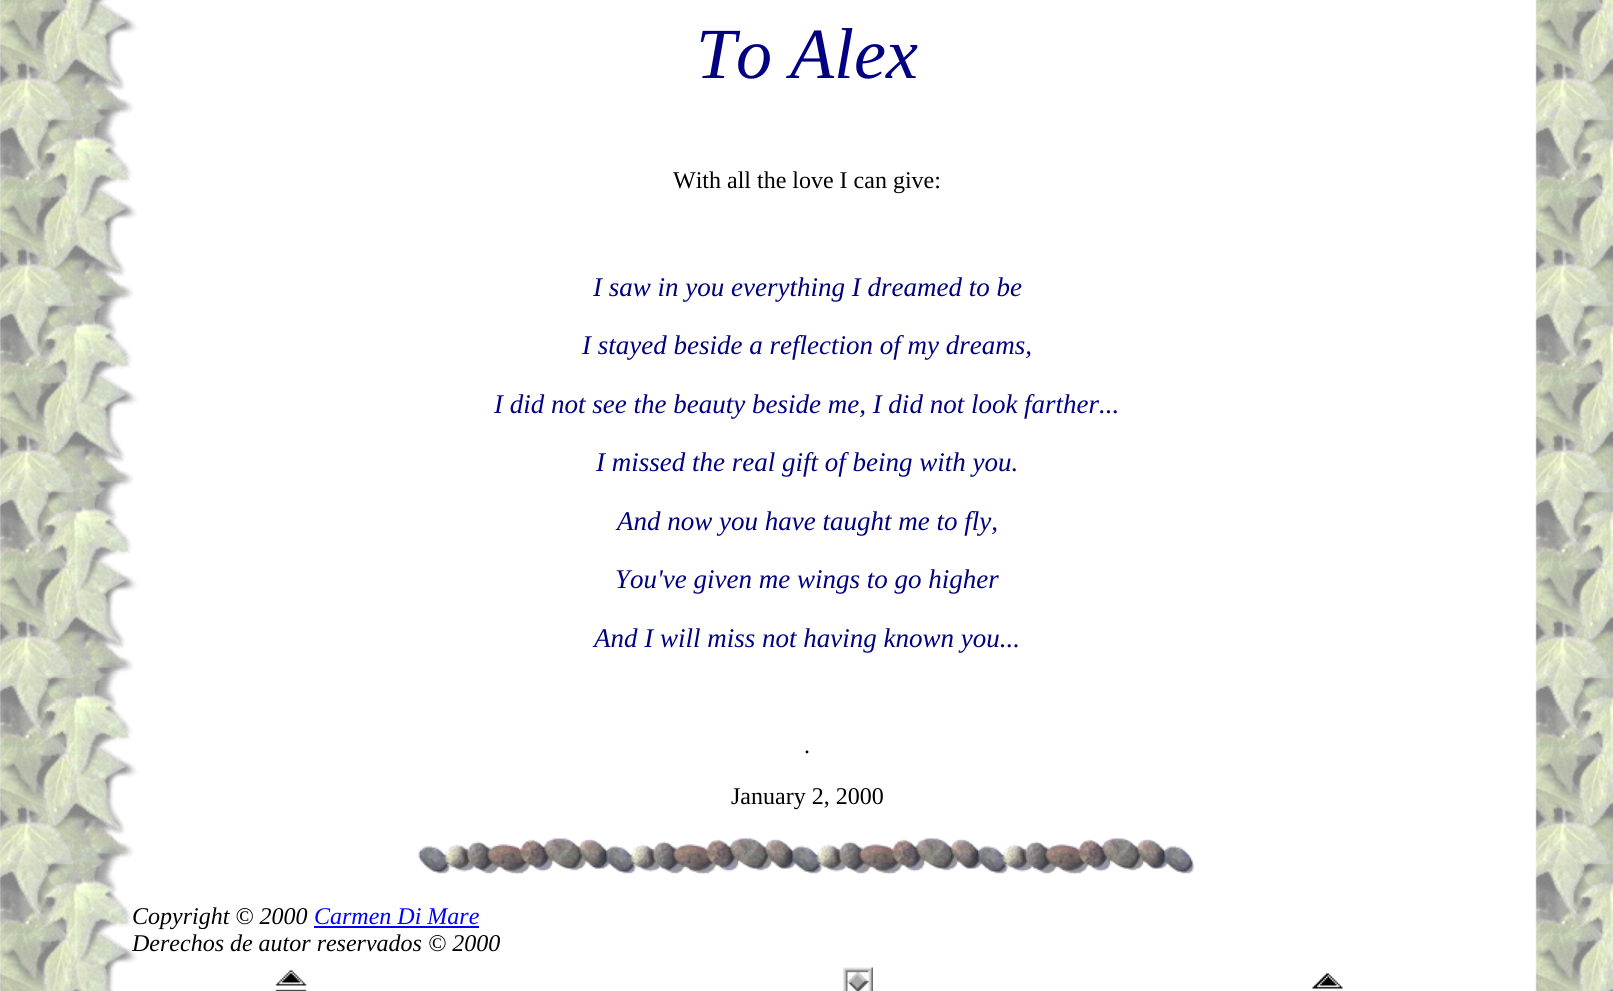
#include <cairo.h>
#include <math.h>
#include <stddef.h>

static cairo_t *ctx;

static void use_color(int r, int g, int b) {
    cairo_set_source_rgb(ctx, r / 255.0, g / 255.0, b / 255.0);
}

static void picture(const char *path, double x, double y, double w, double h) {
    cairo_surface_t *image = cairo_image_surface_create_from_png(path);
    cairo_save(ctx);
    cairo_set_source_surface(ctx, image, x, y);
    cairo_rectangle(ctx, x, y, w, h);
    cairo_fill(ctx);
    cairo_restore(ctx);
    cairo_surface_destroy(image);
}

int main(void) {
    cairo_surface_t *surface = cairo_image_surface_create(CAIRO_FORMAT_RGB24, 1613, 991);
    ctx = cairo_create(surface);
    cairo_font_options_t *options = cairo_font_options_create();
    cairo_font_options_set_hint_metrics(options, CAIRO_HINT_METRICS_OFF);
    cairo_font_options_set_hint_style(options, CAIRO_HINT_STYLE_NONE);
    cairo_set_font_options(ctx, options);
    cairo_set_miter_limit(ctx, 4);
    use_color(255, 255, 255);
    cairo_paint(ctx);
    picture("img1.png", 0, 0, 1613, 991);
    cairo_select_font_face(ctx, "Liberation Serif", CAIRO_FONT_SLANT_ITALIC, CAIRO_FONT_WEIGHT_NORMAL);
    cairo_set_font_size(ctx, 72);
    use_color(0, 0, 128);
    cairo_move_to(ctx, 696, 78);
    cairo_show_text(ctx, "To Alex");
    cairo_select_font_face(ctx, "Liberation Serif", CAIRO_FONT_SLANT_NORMAL, CAIRO_FONT_WEIGHT_NORMAL);
    cairo_set_font_size(ctx, 24);
    use_color(0, 0, 0);
    cairo_move_to(ctx, 673, 188);
    cairo_show_text(ctx, "With all the love I can give:");
    cairo_select_font_face(ctx, "Liberation Serif", CAIRO_FONT_SLANT_ITALIC, CAIRO_FONT_WEIGHT_NORMAL);
    cairo_set_font_size(ctx, 27);
    use_color(0, 0, 128);
    cairo_move_to(ctx, 593, 296);
    cairo_show_text(ctx, "I saw in you everything I dreamed to be");
    cairo_move_to(ctx, 582, 354);
    cairo_show_text(ctx, "I stayed beside a reflection of my dreams,");
    cairo_move_to(ctx, 494, 413);
    cairo_show_text(ctx, "I did not see the beauty beside me, I did not look farther...");
    cairo_move_to(ctx, 596, 471);
    cairo_show_text(ctx, "I missed the real gift of being with you.");
    cairo_move_to(ctx, 617, 530);
    cairo_show_text(ctx, "And now you have taught me to fly,");
    cairo_move_to(ctx, 615, 588);
    cairo_show_text(ctx, "You've given me wings to go higher");
    cairo_move_to(ctx, 594, 647);
    cairo_show_text(ctx, "And I will miss not having known you...");
    cairo_select_font_face(ctx, "Liberation Serif", CAIRO_FONT_SLANT_NORMAL, CAIRO_FONT_WEIGHT_NORMAL);
    cairo_set_font_size(ctx, 24);
    use_color(0, 0, 0);
    cairo_move_to(ctx, 804, 753);
    cairo_show_text(ctx, ".");
    cairo_move_to(ctx, 731, 804);
    cairo_show_text(ctx, "January 2, 2000");
    picture("img2.png", 418, 838, 777, 37);
    cairo_select_font_face(ctx, "Liberation Serif", CAIRO_FONT_SLANT_ITALIC, CAIRO_FONT_WEIGHT_NORMAL);
    cairo_move_to(ctx, 132, 924);
    cairo_show_text(ctx, "Copyright © 2000");
    use_color(0, 0, 255);
    cairo_move_to(ctx, 314, 924);
    cairo_show_text(ctx, "Carmen Di Mare");
    cairo_rectangle(ctx, 314, 926, 165, 2);
    cairo_fill(ctx);
    use_color(0, 0, 0);
    cairo_move_to(ctx, 132, 951);
    cairo_show_text(ctx, "Derechos de autor reservados © 2000");
    picture("img3.png", 275, 970, 32, 21);
    picture("img4.png", 843, 967, 30, 24);
    picture("img5.png", 1312, 973, 31, 16);
    cairo_surface_write_to_png(surface, "result.png");
    cairo_font_options_destroy(options);
    cairo_destroy(ctx);
    cairo_surface_destroy(surface);
    return 0;
}
